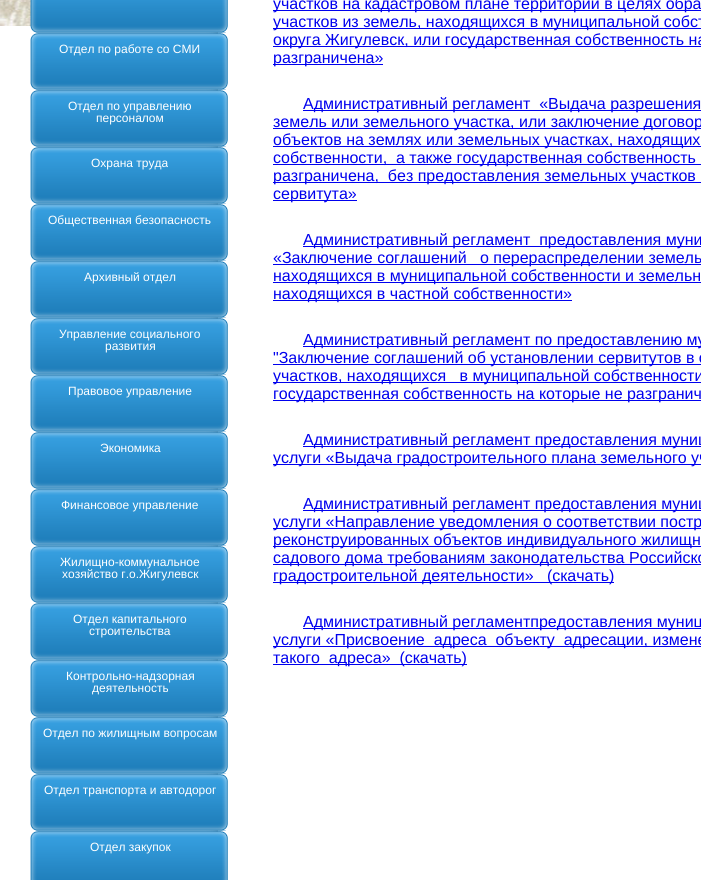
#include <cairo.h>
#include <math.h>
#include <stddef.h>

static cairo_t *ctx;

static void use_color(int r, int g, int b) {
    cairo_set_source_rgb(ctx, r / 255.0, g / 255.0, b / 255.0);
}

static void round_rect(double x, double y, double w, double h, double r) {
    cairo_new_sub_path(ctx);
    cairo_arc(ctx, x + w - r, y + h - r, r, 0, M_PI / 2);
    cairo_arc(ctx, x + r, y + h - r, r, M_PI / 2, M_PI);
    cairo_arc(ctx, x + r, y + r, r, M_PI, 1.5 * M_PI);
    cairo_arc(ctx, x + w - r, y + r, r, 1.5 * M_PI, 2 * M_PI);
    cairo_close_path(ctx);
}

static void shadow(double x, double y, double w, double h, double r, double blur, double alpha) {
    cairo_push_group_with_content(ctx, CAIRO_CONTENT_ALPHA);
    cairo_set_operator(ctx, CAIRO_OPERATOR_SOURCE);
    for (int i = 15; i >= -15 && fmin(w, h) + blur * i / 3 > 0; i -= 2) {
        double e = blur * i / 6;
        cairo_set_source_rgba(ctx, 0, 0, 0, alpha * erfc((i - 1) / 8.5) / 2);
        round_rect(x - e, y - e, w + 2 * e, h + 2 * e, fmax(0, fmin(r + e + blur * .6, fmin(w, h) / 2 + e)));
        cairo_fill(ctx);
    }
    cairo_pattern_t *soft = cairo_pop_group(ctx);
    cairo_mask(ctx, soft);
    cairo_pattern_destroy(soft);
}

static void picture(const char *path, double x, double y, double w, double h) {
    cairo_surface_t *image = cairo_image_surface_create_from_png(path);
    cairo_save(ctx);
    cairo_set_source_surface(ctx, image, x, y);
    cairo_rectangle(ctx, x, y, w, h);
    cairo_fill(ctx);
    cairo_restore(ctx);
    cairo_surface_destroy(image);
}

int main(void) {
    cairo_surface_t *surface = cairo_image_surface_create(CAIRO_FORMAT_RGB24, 701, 880);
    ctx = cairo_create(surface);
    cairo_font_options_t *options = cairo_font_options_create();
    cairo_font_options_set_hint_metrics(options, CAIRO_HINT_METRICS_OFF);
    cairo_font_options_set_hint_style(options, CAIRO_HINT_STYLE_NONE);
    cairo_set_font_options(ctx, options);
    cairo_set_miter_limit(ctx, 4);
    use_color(255, 255, 255);
    cairo_paint(ctx);
    picture("img1.png", 0, 0, 31, 26);
    use_color(0, 0, 0);
    shadow(217, -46, 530, 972, 31, 5, 0.4);
    use_color(255, 255, 255);
    cairo_rectangle(ctx, 218, 0, 483, 880);
    cairo_fill(ctx);
    picture("img2.png", 30, 0, 198, 33);
    picture("img3.png", 30, 33, 198, 57);
    cairo_select_font_face(ctx, "Liberation Sans", CAIRO_FONT_SLANT_NORMAL, CAIRO_FONT_WEIGHT_NORMAL);
    cairo_set_font_size(ctx, 12);
    cairo_move_to(ctx, 59, 53);
    cairo_show_text(ctx, "Отдел по работе со СМИ");
    picture("img3.png", 30, 90, 198, 57);
    cairo_move_to(ctx, 68, 110);
    cairo_show_text(ctx, "Отдел по управлению");
    cairo_move_to(ctx, 96, 122);
    cairo_show_text(ctx, "персоналом");
    picture("img3.png", 30, 147, 198, 57);
    cairo_move_to(ctx, 91, 167);
    cairo_show_text(ctx, "Охрана труда");
    picture("img3.png", 30, 204, 198, 57);
    cairo_move_to(ctx, 48, 224);
    cairo_show_text(ctx, "Общественная безопасность");
    picture("img3.png", 30, 261, 198, 57);
    cairo_move_to(ctx, 84, 281);
    cairo_show_text(ctx, "Архивный отдел");
    picture("img3.png", 30, 318, 198, 57);
    cairo_move_to(ctx, 59, 338);
    cairo_show_text(ctx, "Управление социального");
    cairo_move_to(ctx, 105, 350);
    cairo_show_text(ctx, "развития");
    picture("img3.png", 30, 375, 198, 57);
    cairo_move_to(ctx, 68, 395);
    cairo_show_text(ctx, "Правовое управление");
    picture("img3.png", 30, 432, 198, 57);
    cairo_move_to(ctx, 100, 452);
    cairo_show_text(ctx, "Экономика");
    picture("img3.png", 30, 489, 198, 57);
    cairo_move_to(ctx, 61, 509);
    cairo_show_text(ctx, "Финансовое управление");
    picture("img3.png", 30, 546, 198, 57);
    cairo_move_to(ctx, 60, 566);
    cairo_show_text(ctx, "Жилищно-коммунальное");
    cairo_move_to(ctx, 62, 578);
    cairo_show_text(ctx, "хозяйство г.о.Жигулевск");
    picture("img3.png", 30, 603, 198, 57);
    cairo_move_to(ctx, 73, 623);
    cairo_show_text(ctx, "Отдел капитального");
    cairo_move_to(ctx, 89, 635);
    cairo_show_text(ctx, "строительства");
    picture("img3.png", 30, 660, 198, 57);
    cairo_move_to(ctx, 66, 680);
    cairo_show_text(ctx, "Контрольно-надзорная");
    cairo_move_to(ctx, 92, 692);
    cairo_show_text(ctx, "деятельность");
    picture("img3.png", 30, 717, 198, 57);
    cairo_move_to(ctx, 43, 737);
    cairo_show_text(ctx, "Отдел по жилищным вопросам");
    picture("img3.png", 30, 774, 198, 57);
    cairo_move_to(ctx, 44, 794);
    cairo_show_text(ctx, "Отдел транспорта и автодорог");
    picture("img4.png", 30, 831, 198, 49);
    cairo_move_to(ctx, 90, 851);
    cairo_show_text(ctx, "Отдел закупок");
    use_color(0, 0, 238);
    cairo_rectangle(ctx, 273, 10, 428, 1);
    cairo_fill(ctx);
    cairo_set_font_size(ctx, 16);
    cairo_move_to(ctx, 273, 9);
    cairo_show_text(ctx, "участков на кадастровом плане территории в целях обра");
    cairo_rectangle(ctx, 273, 28, 428, 1);
    cairo_fill(ctx);
    cairo_move_to(ctx, 273, 27);
    cairo_show_text(ctx, "участков из земель, находящихся в муниципальной собст");
    cairo_rectangle(ctx, 273, 46, 428, 1);
    cairo_fill(ctx);
    cairo_move_to(ctx, 273, 45);
    cairo_show_text(ctx, "округа Жигулевск, или государственная собственность на");
    cairo_rectangle(ctx, 273, 64, 110, 1);
    cairo_fill(ctx);
    cairo_move_to(ctx, 273, 63);
    cairo_show_text(ctx, "разграничена»");
    cairo_rectangle(ctx, 303, 110, 398, 1);
    cairo_fill(ctx);
    cairo_move_to(ctx, 303, 109);
    cairo_show_text(ctx, "Административный регламент  «Выдача разрешения");
    cairo_rectangle(ctx, 273, 128, 428, 1);
    cairo_fill(ctx);
    cairo_move_to(ctx, 273, 127);
    cairo_show_text(ctx, "земель или земельного участка, или заключение договор");
    cairo_rectangle(ctx, 273, 146, 428, 1);
    cairo_fill(ctx);
    cairo_move_to(ctx, 273, 145);
    cairo_show_text(ctx, "объектов на землях или земельных участках, находящих");
    cairo_rectangle(ctx, 273, 164, 428, 1);
    cairo_fill(ctx);
    cairo_move_to(ctx, 273, 163);
    cairo_show_text(ctx, "собственности,  а также государственная собственность");
    cairo_rectangle(ctx, 273, 182, 428, 1);
    cairo_fill(ctx);
    cairo_move_to(ctx, 273, 181);
    cairo_show_text(ctx, "разграничена,  без предоставления земельных участков");
    cairo_rectangle(ctx, 273, 200, 84, 1);
    cairo_fill(ctx);
    cairo_move_to(ctx, 273, 199);
    cairo_show_text(ctx, "сервитута»");
    cairo_rectangle(ctx, 303, 246, 398, 1);
    cairo_fill(ctx);
    cairo_move_to(ctx, 303, 245);
    cairo_show_text(ctx, "Административный регламент  предоставления муни");
    cairo_rectangle(ctx, 273, 264, 428, 1);
    cairo_fill(ctx);
    cairo_move_to(ctx, 273, 263);
    cairo_show_text(ctx, "«Заключение соглашений   о перераспределении земель");
    cairo_rectangle(ctx, 273, 282, 428, 1);
    cairo_fill(ctx);
    cairo_move_to(ctx, 273, 281);
    cairo_show_text(ctx, "находящихся в муниципальной собственности и земельн");
    cairo_rectangle(ctx, 273, 300, 299, 1);
    cairo_fill(ctx);
    cairo_move_to(ctx, 273, 299);
    cairo_show_text(ctx, "находящихся в частной собственности»");
    cairo_rectangle(ctx, 303, 346, 398, 1);
    cairo_fill(ctx);
    cairo_move_to(ctx, 303, 345);
    cairo_show_text(ctx, "Административный регламент по предоставлению му");
    cairo_rectangle(ctx, 273, 364, 428, 1);
    cairo_fill(ctx);
    cairo_move_to(ctx, 273, 363);
    cairo_show_text(ctx, "\"Заключение соглашений об установлении сервитутов в о");
    cairo_rectangle(ctx, 273, 382, 428, 1);
    cairo_fill(ctx);
    cairo_move_to(ctx, 273, 381);
    cairo_show_text(ctx, "участков, находящихся   в муниципальной собственности");
    cairo_rectangle(ctx, 273, 400, 428, 1);
    cairo_fill(ctx);
    cairo_move_to(ctx, 273, 399);
    cairo_show_text(ctx, "государственная собственность на которые не разгранич");
    cairo_rectangle(ctx, 303, 446, 398, 1);
    cairo_fill(ctx);
    cairo_move_to(ctx, 303, 445);
    cairo_show_text(ctx, "Административный регламент предоставления муниц");
    cairo_rectangle(ctx, 273, 464, 428, 1);
    cairo_fill(ctx);
    cairo_move_to(ctx, 273, 463);
    cairo_show_text(ctx, "услуги «Выдача градостроительного плана земельного уч");
    cairo_rectangle(ctx, 303, 510, 398, 1);
    cairo_fill(ctx);
    cairo_move_to(ctx, 303, 509);
    cairo_show_text(ctx, "Административный регламент предоставления муниц");
    cairo_rectangle(ctx, 273, 528, 428, 1);
    cairo_fill(ctx);
    cairo_move_to(ctx, 273, 527);
    cairo_show_text(ctx, "услуги «Направление уведомления о соответствии постр");
    cairo_rectangle(ctx, 273, 546, 428, 1);
    cairo_fill(ctx);
    cairo_move_to(ctx, 273, 545);
    cairo_show_text(ctx, "реконструированных объектов индивидуального жилищн");
    cairo_rectangle(ctx, 273, 564, 428, 1);
    cairo_fill(ctx);
    cairo_move_to(ctx, 273, 563);
    cairo_show_text(ctx, "садового дома требованиям законодательства Российско");
    cairo_rectangle(ctx, 273, 582, 341, 1);
    cairo_fill(ctx);
    cairo_move_to(ctx, 273, 581);
    cairo_show_text(ctx, "градостроительной деятельности»   (скачать)");
    cairo_rectangle(ctx, 303, 628, 398, 1);
    cairo_fill(ctx);
    cairo_move_to(ctx, 303, 627);
    cairo_show_text(ctx, "Административный регламентпредоставления муниц");
    cairo_rectangle(ctx, 273, 646, 428, 1);
    cairo_fill(ctx);
    cairo_move_to(ctx, 273, 645);
    cairo_show_text(ctx, "услуги «Присвоение  адреса  объекту  адресации, измене");
    cairo_rectangle(ctx, 273, 664, 194, 1);
    cairo_fill(ctx);
    cairo_move_to(ctx, 273, 663);
    cairo_show_text(ctx, "такого  адреса»  (скачать)");
    cairo_surface_write_to_png(surface, "result.png");
    cairo_font_options_destroy(options);
    cairo_destroy(ctx);
    cairo_surface_destroy(surface);
    return 0;
}
